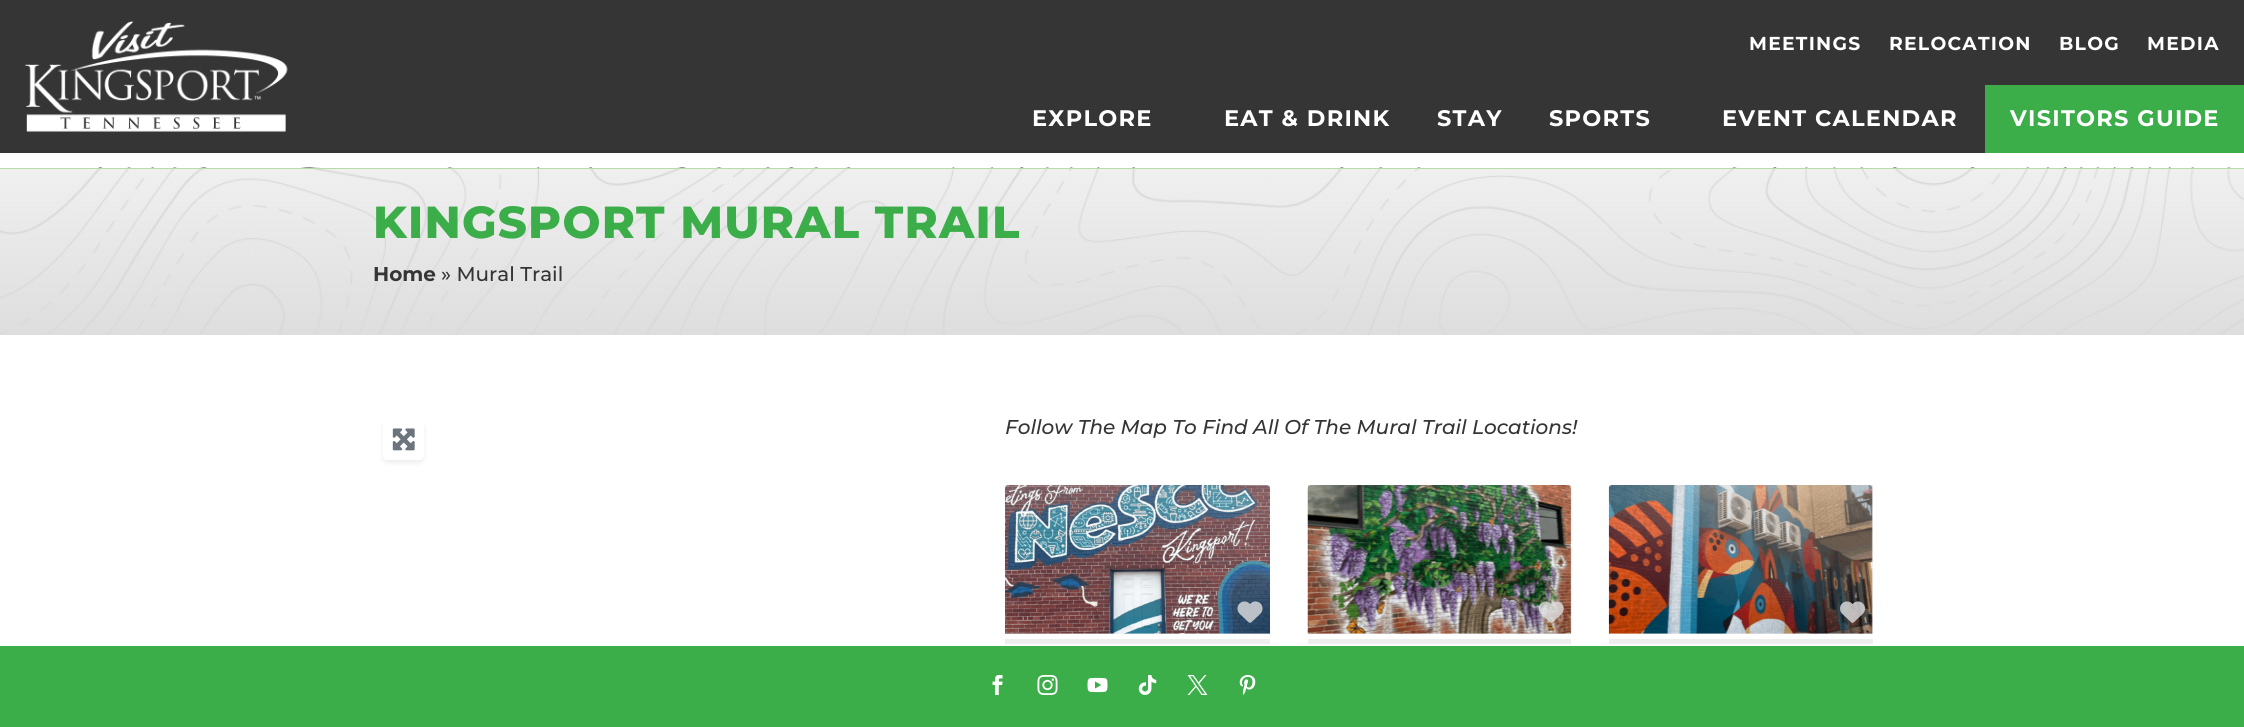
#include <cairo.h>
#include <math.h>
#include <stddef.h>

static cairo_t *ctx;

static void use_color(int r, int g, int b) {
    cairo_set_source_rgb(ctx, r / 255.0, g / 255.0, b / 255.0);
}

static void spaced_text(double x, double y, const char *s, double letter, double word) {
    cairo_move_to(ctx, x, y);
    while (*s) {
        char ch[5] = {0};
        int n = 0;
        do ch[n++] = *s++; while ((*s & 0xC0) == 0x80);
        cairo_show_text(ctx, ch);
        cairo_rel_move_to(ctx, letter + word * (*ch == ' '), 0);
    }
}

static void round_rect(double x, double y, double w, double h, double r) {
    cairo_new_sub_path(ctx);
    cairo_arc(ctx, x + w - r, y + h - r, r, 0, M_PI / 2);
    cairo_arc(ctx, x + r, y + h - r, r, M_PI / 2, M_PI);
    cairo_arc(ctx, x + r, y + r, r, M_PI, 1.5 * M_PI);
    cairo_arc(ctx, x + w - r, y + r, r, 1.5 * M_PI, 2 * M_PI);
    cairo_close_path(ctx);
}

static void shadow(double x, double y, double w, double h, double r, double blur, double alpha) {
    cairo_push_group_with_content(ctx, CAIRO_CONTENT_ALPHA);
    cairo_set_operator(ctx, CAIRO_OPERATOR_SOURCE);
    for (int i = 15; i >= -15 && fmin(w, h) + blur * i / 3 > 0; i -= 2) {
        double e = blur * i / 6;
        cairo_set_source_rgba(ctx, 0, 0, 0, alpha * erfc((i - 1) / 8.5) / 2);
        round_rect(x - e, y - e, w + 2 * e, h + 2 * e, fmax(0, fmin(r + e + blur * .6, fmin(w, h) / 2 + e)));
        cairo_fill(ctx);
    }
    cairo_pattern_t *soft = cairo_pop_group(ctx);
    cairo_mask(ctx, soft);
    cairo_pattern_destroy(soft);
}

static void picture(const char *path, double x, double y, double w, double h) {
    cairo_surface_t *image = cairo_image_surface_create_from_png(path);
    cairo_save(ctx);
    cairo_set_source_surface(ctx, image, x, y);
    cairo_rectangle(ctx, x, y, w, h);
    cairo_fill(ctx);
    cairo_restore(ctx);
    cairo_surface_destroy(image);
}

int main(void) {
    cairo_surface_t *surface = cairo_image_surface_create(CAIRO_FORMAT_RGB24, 2244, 727);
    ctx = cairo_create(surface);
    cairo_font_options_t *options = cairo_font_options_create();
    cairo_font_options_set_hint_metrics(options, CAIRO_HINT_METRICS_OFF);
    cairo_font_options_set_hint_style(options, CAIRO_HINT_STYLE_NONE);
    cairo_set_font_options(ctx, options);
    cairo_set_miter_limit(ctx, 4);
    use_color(255, 255, 255);
    cairo_paint(ctx);
    use_color(53, 53, 53);
    cairo_rectangle(ctx, 0, 0, 2244, 153);
    cairo_fill(ctx);
    picture("img1.png", 25, 21, 263, 111);
    cairo_select_font_face(ctx, "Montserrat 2 Thin", CAIRO_FONT_SLANT_NORMAL, CAIRO_FONT_WEIGHT_NORMAL);
    cairo_set_font_size(ctx, 18.75);
    use_color(255, 255, 255);
    spaced_text(1749, 50, "MEETINGS", 1.25, 0);
    spaced_text(1889, 50, "RELOCATION", 1.25, 0);
    spaced_text(2059, 50, "BLOG", 1.25, 0);
    spaced_text(2147, 50, "MEDIA", 1.25, 0);
    cairo_set_font_size(ctx, 22.5);
    spaced_text(1032, 126, "EXPLORE", 1.25, 0);
    spaced_text(1224, 126, "EAT & DRINK", 1.25, 0);
    spaced_text(1437, 126, "STAY", 1.25, 0);
    spaced_text(1549, 126, "SPORTS", 1.25, 0);
    spaced_text(1722, 126, "EVENT CALENDAR", 1.25, 0);
    use_color(60, 174, 73);
    cairo_rectangle(ctx, 1985, 85, 259, 68);
    cairo_fill(ctx);
    use_color(255, 255, 255);
    spaced_text(2010, 126, "VISITORS GUIDE", 1.25, 0);
    picture("img2.png", 0, 167, 2244, 168);
    use_color(181, 221, 166);
    cairo_rectangle(ctx, 0, 168, 2244, 1);
    cairo_fill(ctx);
    cairo_select_font_face(ctx, "Montserrat Thin", CAIRO_FONT_SLANT_NORMAL, CAIRO_FONT_WEIGHT_NORMAL);
    cairo_set_font_size(ctx, 44.9);
    use_color(60, 174, 73);
    spaced_text(373, 238, "KINGSPORT MURAL TRAIL", 1.25, 0);
    cairo_select_font_face(ctx, "Montserrat 2 Thin", CAIRO_FONT_SLANT_NORMAL, CAIRO_FONT_WEIGHT_NORMAL);
    cairo_set_font_size(ctx, 20);
    use_color(53, 53, 53);
    cairo_move_to(ctx, 373, 281);
    cairo_show_text(ctx, "Home");
    cairo_select_font_face(ctx, "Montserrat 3 Thin", CAIRO_FONT_SLANT_NORMAL, CAIRO_FONT_WEIGHT_NORMAL);
    cairo_move_to(ctx, 441, 281);
    cairo_show_text(ctx, "» Mural Trail");
    use_color(0, 0, 0);
    shadow(383, 423, 41, 40, 4, 2.5, 0.07);
    use_color(255, 255, 255);
    round_rect(383, 420, 41, 40, 4);
    cairo_fill(ctx);
    picture("img3.png", 392, 428, 23, 23);
    cairo_select_font_face(ctx, "Montserrat Thin", CAIRO_FONT_SLANT_ITALIC, CAIRO_FONT_WEIGHT_NORMAL);
    use_color(53, 53, 53);
    cairo_move_to(ctx, 1005, 434);
    cairo_show_text(ctx, "Follow The Map To Find All Of The Mural Trail Locations!");
    use_color(238, 238, 238);
    cairo_rectangle(ctx, 1005, 485, 265, 159);
    cairo_fill(ctx);
    picture("img4.png", 1005, 485, 265, 149);
    picture("img5.png", 1237, 601, 26, 22);
    use_color(255, 255, 255);
    cairo_rectangle(ctx, 1005, 634, 265, 5);
    cairo_fill(ctx);
    use_color(238, 238, 238);
    cairo_rectangle(ctx, 1308, 485, 263, 159);
    cairo_fill(ctx);
    picture("img6.png", 1307, 485, 265, 149);
    picture("img7.png", 1538, 601, 26, 22);
    use_color(255, 255, 255);
    cairo_rectangle(ctx, 1308, 634, 263, 5);
    cairo_fill(ctx);
    use_color(238, 238, 238);
    cairo_rectangle(ctx, 1609, 485, 264, 159);
    cairo_fill(ctx);
    picture("img8.png", 1608, 485, 265, 149);
    picture("img9.png", 1840, 601, 25, 22);
    use_color(255, 255, 255);
    cairo_rectangle(ctx, 1609, 634, 264, 5);
    cairo_fill(ctx);
    use_color(60, 174, 73);
    cairo_rectangle(ctx, 0, 646, 2244, 81);
    cairo_fill(ctx);
    picture("img10.png", 992, 675, 11, 20);
    picture("img11.png", 1037, 675, 21, 20);
    picture("img12.png", 1087, 677, 21, 16);
    picture("img13.png", 1138, 675, 19, 20);
    picture("img14.png", 1187, 675, 21, 20);
    picture("img15.png", 1239, 675, 17, 20);
    cairo_surface_write_to_png(surface, "result.png");
    cairo_font_options_destroy(options);
    cairo_destroy(ctx);
    cairo_surface_destroy(surface);
    return 0;
}
